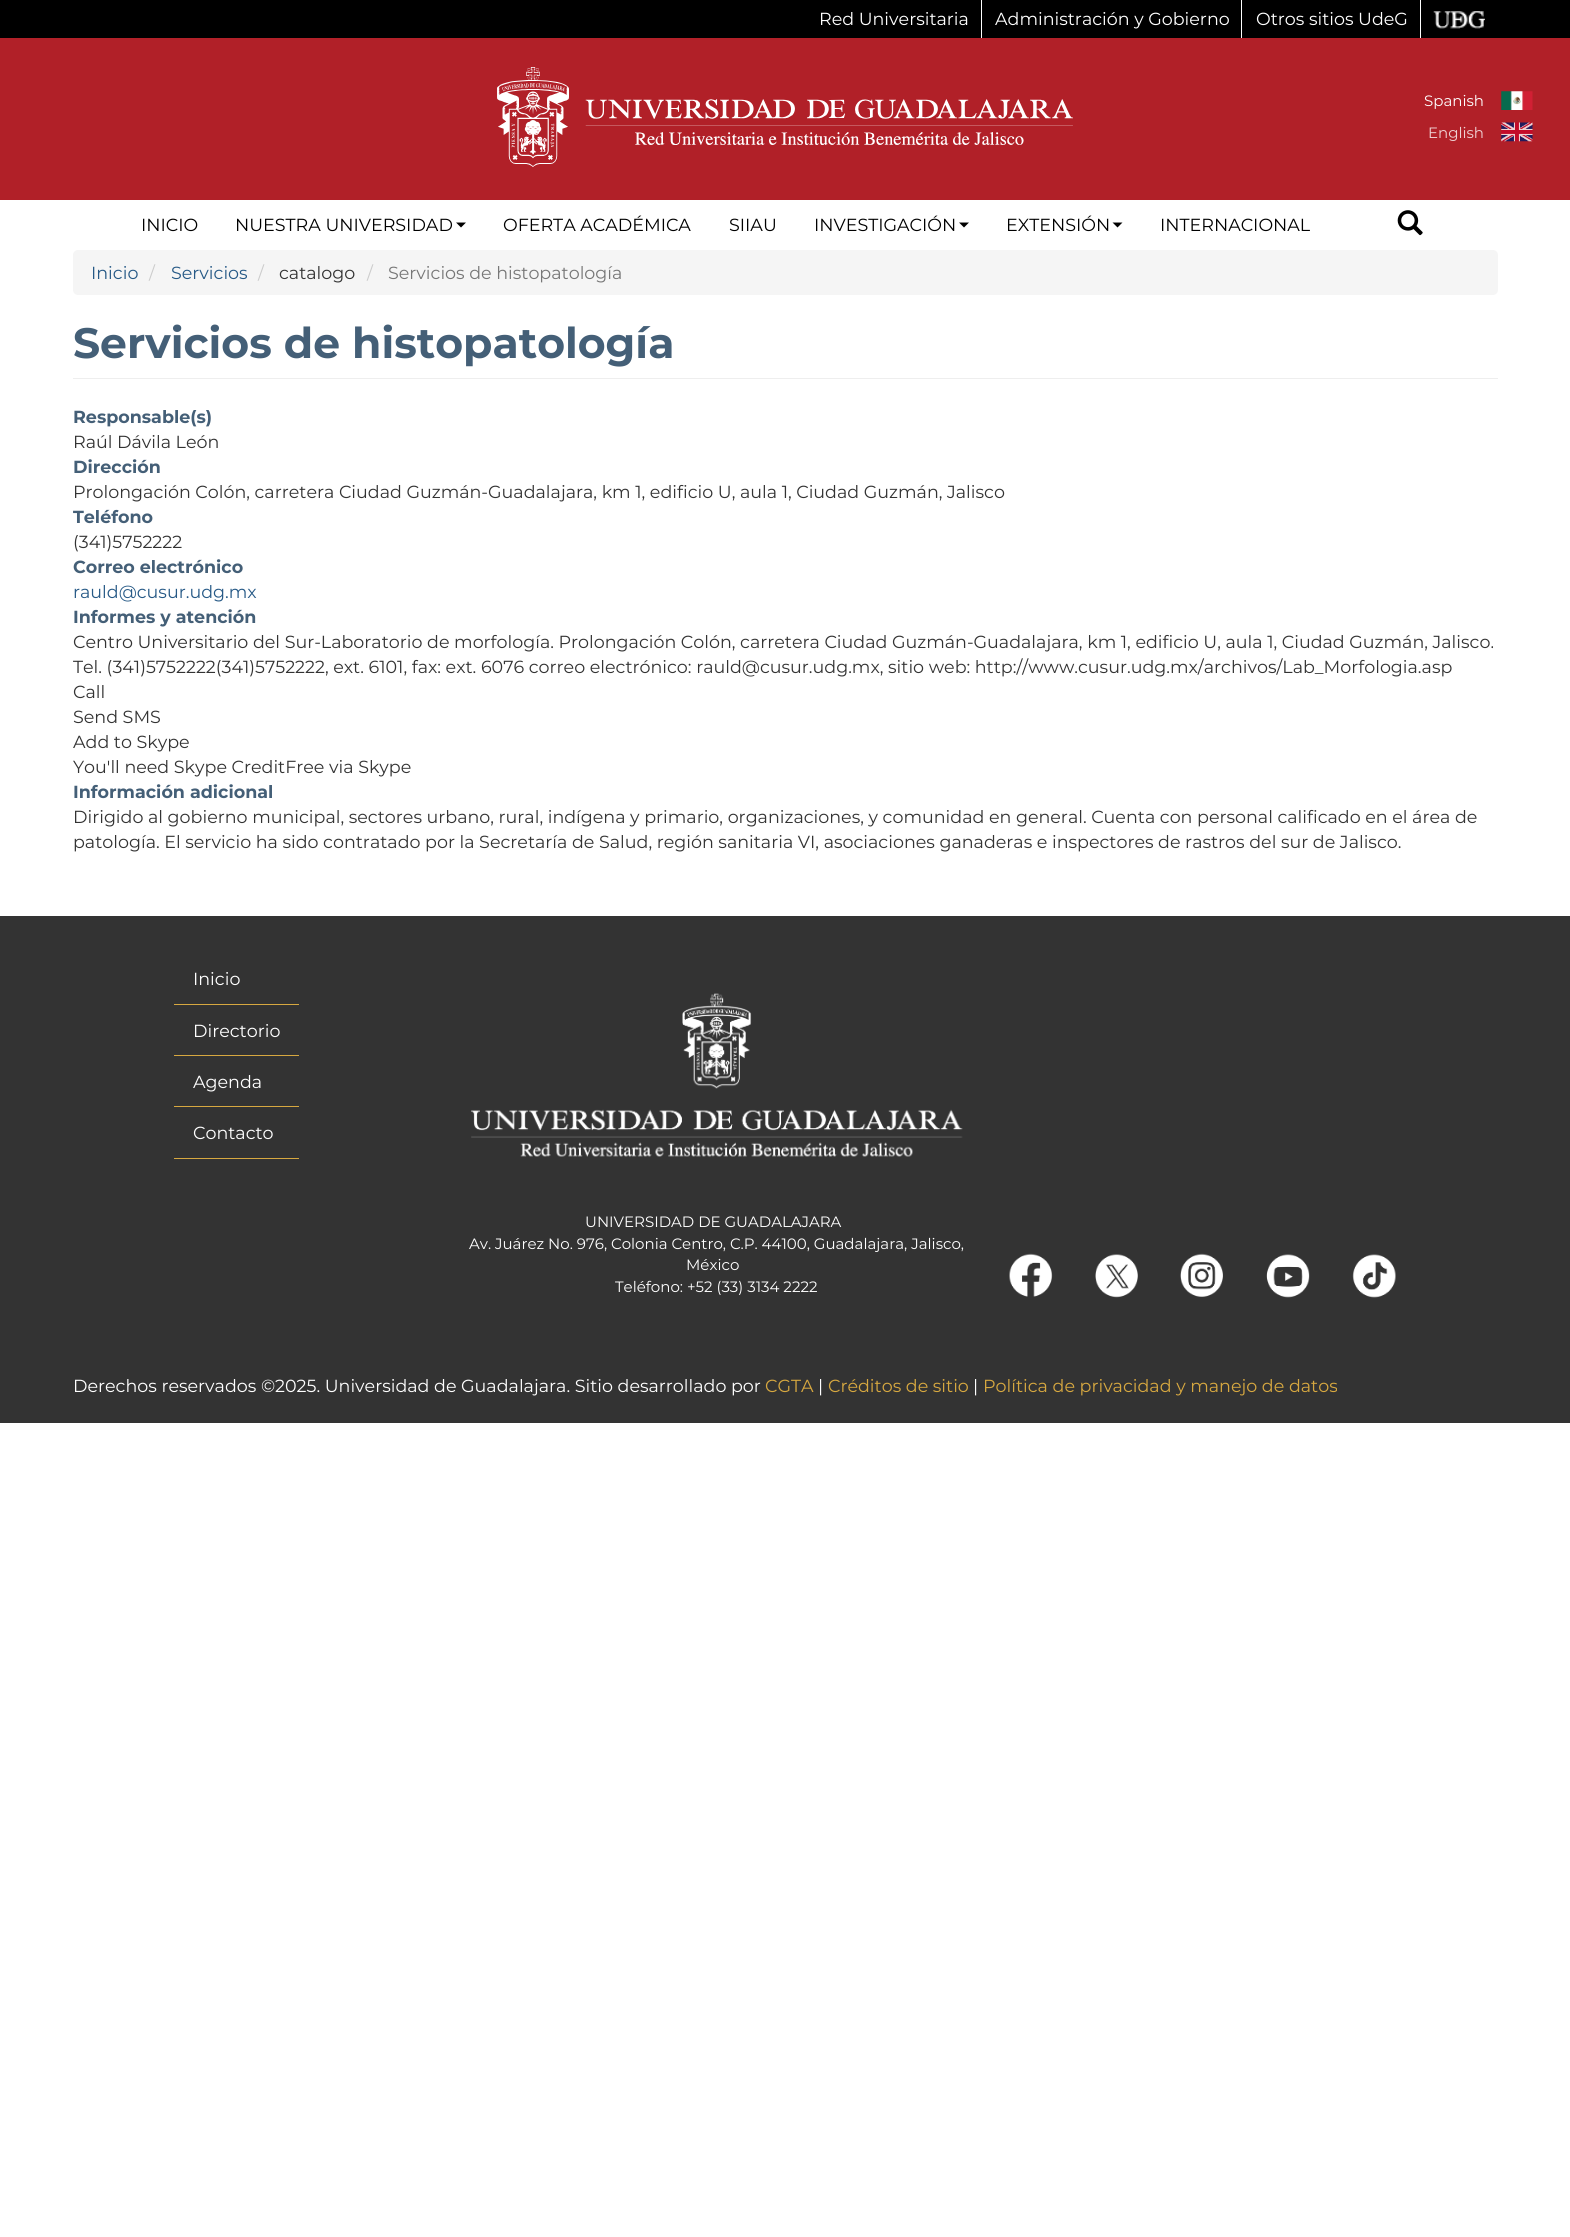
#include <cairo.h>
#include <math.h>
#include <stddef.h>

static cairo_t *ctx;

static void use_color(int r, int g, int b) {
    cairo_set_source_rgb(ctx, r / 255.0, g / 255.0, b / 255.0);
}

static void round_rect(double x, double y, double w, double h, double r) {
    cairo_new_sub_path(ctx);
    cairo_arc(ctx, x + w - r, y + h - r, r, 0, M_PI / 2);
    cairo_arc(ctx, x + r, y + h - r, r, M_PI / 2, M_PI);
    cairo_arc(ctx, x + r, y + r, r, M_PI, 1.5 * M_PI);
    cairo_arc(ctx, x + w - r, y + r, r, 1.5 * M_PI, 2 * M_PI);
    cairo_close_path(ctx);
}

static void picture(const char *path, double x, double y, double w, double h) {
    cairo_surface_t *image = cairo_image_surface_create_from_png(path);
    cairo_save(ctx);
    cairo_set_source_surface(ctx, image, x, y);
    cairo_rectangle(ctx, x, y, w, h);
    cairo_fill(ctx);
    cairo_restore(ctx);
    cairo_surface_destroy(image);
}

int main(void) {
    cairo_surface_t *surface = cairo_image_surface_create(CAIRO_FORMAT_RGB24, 1570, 2237);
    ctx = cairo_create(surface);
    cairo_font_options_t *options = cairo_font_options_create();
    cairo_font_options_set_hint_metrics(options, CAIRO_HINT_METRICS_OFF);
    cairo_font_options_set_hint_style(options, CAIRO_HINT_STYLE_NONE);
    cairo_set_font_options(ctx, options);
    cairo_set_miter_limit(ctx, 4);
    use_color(255, 255, 255);
    cairo_paint(ctx);
    use_color(0, 0, 0);
    cairo_rectangle(ctx, 0, 0, 1570, 38);
    cairo_fill(ctx);
    use_color(255, 255, 255);
    cairo_rectangle(ctx, 981, 0, 1, 38);
    cairo_fill(ctx);
    cairo_select_font_face(ctx, "Montserrat", CAIRO_FONT_SLANT_NORMAL, CAIRO_FONT_WEIGHT_NORMAL);
    cairo_set_font_size(ctx, 17.5);
    cairo_move_to(ctx, 819, 25);
    cairo_show_text(ctx, "Red Universitaria");
    cairo_rectangle(ctx, 1241, 0, 1, 38);
    cairo_fill(ctx);
    cairo_move_to(ctx, 995, 25);
    cairo_show_text(ctx, "Administración y Gobierno");
    cairo_rectangle(ctx, 1420, 0, 1, 38);
    cairo_fill(ctx);
    cairo_move_to(ctx, 1256, 25);
    cairo_show_text(ctx, "Otros sitios UdeG");
    picture("img1.png", 1433, 11, 52, 18);
    use_color(177, 32, 40);
    cairo_rectangle(ctx, 0, 38, 1570, 162);
    cairo_fill(ctx);
    picture("img2.png", 497, 67, 576, 100);
    cairo_set_font_size(ctx, 15);
    use_color(255, 255, 255);
    cairo_move_to(ctx, 1424, 106);
    cairo_show_text(ctx, "Spanish");
    picture("img3.png", 1501, 91, 32, 19);
    use_color(239, 210, 212);
    cairo_move_to(ctx, 1428, 138);
    cairo_show_text(ctx, "English");
    picture("img4.png", 1501, 122, 32, 20);
    cairo_set_font_size(ctx, 17.5);
    use_color(0, 0, 0);
    cairo_move_to(ctx, 141, 231);
    cairo_show_text(ctx, "INICIO");
    cairo_move_to(ctx, 235, 231);
    cairo_show_text(ctx, "NUESTRA UNIVERSIDAD");
    cairo_new_path(ctx);
    cairo_move_to(ctx, 456, 222.5);
    cairo_line_to(ctx, 466, 222.5);
    cairo_line_to(ctx, 461, 227.5);
    cairo_close_path(ctx);
    cairo_fill(ctx);
    cairo_move_to(ctx, 503, 231);
    cairo_show_text(ctx, "OFERTA ACADÉMICA");
    cairo_move_to(ctx, 729, 231);
    cairo_show_text(ctx, "SIIAU");
    cairo_move_to(ctx, 814, 231);
    cairo_show_text(ctx, "INVESTIGACIÓN");
    cairo_new_path(ctx);
    cairo_move_to(ctx, 959, 222.5);
    cairo_line_to(ctx, 969, 222.5);
    cairo_line_to(ctx, 964, 227.5);
    cairo_close_path(ctx);
    cairo_fill(ctx);
    cairo_move_to(ctx, 1006, 231);
    cairo_show_text(ctx, "EXTENSIÓN");
    cairo_new_path(ctx);
    cairo_move_to(ctx, 1112.5, 222.5);
    cairo_line_to(ctx, 1122.5, 222.5);
    cairo_line_to(ctx, 1117.5, 227.5);
    cairo_close_path(ctx);
    cairo_fill(ctx);
    cairo_move_to(ctx, 1160, 231);
    cairo_show_text(ctx, "INTERNACIONAL");
    picture("img5.png", 1397, 210, 26, 26);
    use_color(245, 245, 245);
    round_rect(73, 250, 1425, 45, 5);
    cairo_fill(ctx);
    use_color(38, 89, 134);
    cairo_move_to(ctx, 91, 279);
    cairo_show_text(ctx, "Inicio");
    use_color(204, 204, 204);
    cairo_move_to(ctx, 149, 279);
    cairo_show_text(ctx, "/");
    use_color(38, 89, 134);
    cairo_move_to(ctx, 171, 279);
    cairo_show_text(ctx, "Servicios");
    use_color(204, 204, 204);
    cairo_move_to(ctx, 258, 279);
    cairo_show_text(ctx, "/");
    use_color(51, 51, 51);
    cairo_move_to(ctx, 279, 279);
    cairo_show_text(ctx, "catalogo");
    use_color(204, 204, 204);
    cairo_move_to(ctx, 367, 279);
    cairo_show_text(ctx, "/");
    use_color(119, 119, 119);
    cairo_move_to(ctx, 388, 279);
    cairo_show_text(ctx, "Servicios de histopatología");
    use_color(238, 238, 238);
    cairo_rectangle(ctx, 73, 378, 1425, 1);
    cairo_fill(ctx);
    cairo_select_font_face(ctx, "Montserrat", CAIRO_FONT_SLANT_NORMAL, CAIRO_FONT_WEIGHT_BOLD);
    cairo_set_font_size(ctx, 42.5);
    use_color(68, 95, 119);
    cairo_move_to(ctx, 73, 358);
    cairo_show_text(ctx, "Servicios de histopatología");
    cairo_set_font_size(ctx, 17.5);
    cairo_move_to(ctx, 73, 423);
    cairo_show_text(ctx, "Responsable(s)");
    cairo_select_font_face(ctx, "Montserrat", CAIRO_FONT_SLANT_NORMAL, CAIRO_FONT_WEIGHT_NORMAL);
    use_color(51, 51, 51);
    cairo_move_to(ctx, 73, 448);
    cairo_show_text(ctx, "Raúl Dávila León");
    cairo_select_font_face(ctx, "Montserrat", CAIRO_FONT_SLANT_NORMAL, CAIRO_FONT_WEIGHT_BOLD);
    use_color(68, 95, 119);
    cairo_move_to(ctx, 73, 473);
    cairo_show_text(ctx, "Dirección");
    cairo_select_font_face(ctx, "Montserrat", CAIRO_FONT_SLANT_NORMAL, CAIRO_FONT_WEIGHT_NORMAL);
    use_color(51, 51, 51);
    cairo_move_to(ctx, 73, 498);
    cairo_show_text(ctx, "Prolongación Colón, carretera Ciudad Guzmán-Guadalajara, km 1, edificio U, aula 1, Ciudad Guzmán, Jalisco");
    cairo_select_font_face(ctx, "Montserrat", CAIRO_FONT_SLANT_NORMAL, CAIRO_FONT_WEIGHT_BOLD);
    use_color(68, 95, 119);
    cairo_move_to(ctx, 73, 523);
    cairo_show_text(ctx, "Teléfono");
    cairo_select_font_face(ctx, "Montserrat", CAIRO_FONT_SLANT_NORMAL, CAIRO_FONT_WEIGHT_NORMAL);
    use_color(51, 51, 51);
    cairo_move_to(ctx, 73, 548);
    cairo_show_text(ctx, "(341)5752222");
    cairo_select_font_face(ctx, "Montserrat", CAIRO_FONT_SLANT_NORMAL, CAIRO_FONT_WEIGHT_BOLD);
    use_color(68, 95, 119);
    cairo_move_to(ctx, 73, 573);
    cairo_show_text(ctx, "Correo electrónico");
    cairo_select_font_face(ctx, "Montserrat", CAIRO_FONT_SLANT_NORMAL, CAIRO_FONT_WEIGHT_NORMAL);
    use_color(38, 89, 134);
    cairo_move_to(ctx, 73, 598);
    cairo_show_text(ctx, "rauld@cusur.udg.mx");
    cairo_select_font_face(ctx, "Montserrat", CAIRO_FONT_SLANT_NORMAL, CAIRO_FONT_WEIGHT_BOLD);
    use_color(68, 95, 119);
    cairo_move_to(ctx, 73, 623);
    cairo_show_text(ctx, "Informes y atención");
    cairo_select_font_face(ctx, "Montserrat", CAIRO_FONT_SLANT_NORMAL, CAIRO_FONT_WEIGHT_NORMAL);
    use_color(51, 51, 51);
    cairo_move_to(ctx, 73, 648);
    cairo_show_text(ctx, "Centro Universitario del Sur-Laboratorio de morfología. Prolongación Colón, carretera Ciudad Guzmán-Guadalajara, km 1, edificio U, aula 1, Ciudad Guzmán, Jalisco.");
    cairo_move_to(ctx, 73, 673);
    cairo_show_text(ctx, "Tel. (341)5752222(341)5752222, ext. 6101, fax: ext. 6076 correo electrónico: rauld@cusur.udg.mx, sitio web: http://www.cusur.udg.mx/archivos/Lab_Morfologia.asp");
    cairo_move_to(ctx, 73, 698);
    cairo_show_text(ctx, "Call");
    cairo_move_to(ctx, 73, 723);
    cairo_show_text(ctx, "Send SMS");
    cairo_move_to(ctx, 73, 748);
    cairo_show_text(ctx, "Add to Skype");
    cairo_move_to(ctx, 73, 773);
    cairo_show_text(ctx, "You'll need Skype CreditFree via Skype");
    cairo_select_font_face(ctx, "Montserrat", CAIRO_FONT_SLANT_NORMAL, CAIRO_FONT_WEIGHT_BOLD);
    use_color(68, 95, 119);
    cairo_move_to(ctx, 73, 798);
    cairo_show_text(ctx, "Información adicional");
    cairo_select_font_face(ctx, "Montserrat", CAIRO_FONT_SLANT_NORMAL, CAIRO_FONT_WEIGHT_NORMAL);
    use_color(51, 51, 51);
    cairo_move_to(ctx, 73, 823);
    cairo_show_text(ctx, "Dirigido al gobierno municipal, sectores urbano, rural, indígena y primario, organizaciones, y comunidad en general. Cuenta con personal calificado en el área de");
    cairo_move_to(ctx, 73, 848);
    cairo_show_text(ctx, "patología. El servicio ha sido contratado por la Secretaría de Salud, región sanitaria VI, asociaciones ganaderas e inspectores de rastros del sur de Jalisco.");
    cairo_rectangle(ctx, 0, 916, 1570, 507);
    cairo_fill(ctx);
    use_color(215, 168, 64);
    cairo_rectangle(ctx, 174, 1004, 125, 1);
    cairo_fill(ctx);
    use_color(255, 255, 255);
    cairo_move_to(ctx, 193, 985);
    cairo_show_text(ctx, "Inicio");
    use_color(215, 168, 64);
    cairo_rectangle(ctx, 174, 1055, 125, 1);
    cairo_fill(ctx);
    use_color(255, 255, 255);
    cairo_move_to(ctx, 193, 1037);
    cairo_show_text(ctx, "Directorio");
    use_color(215, 168, 64);
    cairo_rectangle(ctx, 174, 1106, 125, 1);
    cairo_fill(ctx);
    use_color(255, 255, 255);
    cairo_move_to(ctx, 193, 1088);
    cairo_show_text(ctx, "Agenda");
    use_color(215, 168, 64);
    cairo_rectangle(ctx, 174, 1158, 125, 1);
    cairo_fill(ctx);
    use_color(255, 255, 255);
    cairo_move_to(ctx, 193, 1139);
    cairo_show_text(ctx, "Contacto");
    picture("img6.png", 471, 993, 492, 164);
    cairo_set_font_size(ctx, 15);
    cairo_move_to(ctx, 585, 1227);
    cairo_show_text(ctx, "UNIVERSIDAD DE GUADALAJARA");
    cairo_move_to(ctx, 469, 1249);
    cairo_show_text(ctx, "Av. Juárez No. 976, Colonia Centro, C.P. 44100, Guadalajara, Jalisco,");
    cairo_move_to(ctx, 686, 1270);
    cairo_show_text(ctx, "México");
    cairo_move_to(ctx, 615, 1292);
    cairo_show_text(ctx, "Teléfono: +52 (33) 3134 2222");
    picture("img7.png", 1009, 1253, 44, 44);
    picture("img8.png", 1095, 1254, 43, 44);
    picture("img9.png", 1180, 1253, 43, 44);
    picture("img10.png", 1266, 1254, 44, 44);
    picture("img11.png", 1352, 1254, 44, 44);
    cairo_set_font_size(ctx, 17.5);
    cairo_move_to(ctx, 73, 1392);
    cairo_show_text(ctx, "Derechos reservados ©2025. Universidad de Guadalajara. Sitio desarrollado por");
    use_color(215, 168, 64);
    cairo_move_to(ctx, 765, 1392);
    cairo_show_text(ctx, "CGTA");
    use_color(255, 255, 255);
    cairo_move_to(ctx, 818, 1392);
    cairo_show_text(ctx, "|");
    use_color(215, 168, 64);
    cairo_move_to(ctx, 828, 1392);
    cairo_show_text(ctx, "Créditos de sitio");
    use_color(255, 255, 255);
    cairo_move_to(ctx, 973, 1392);
    cairo_show_text(ctx, "|");
    use_color(215, 168, 64);
    cairo_move_to(ctx, 983, 1392);
    cairo_show_text(ctx, "Política de privacidad y manejo de datos");
    cairo_surface_write_to_png(surface, "result.png");
    cairo_font_options_destroy(options);
    cairo_destroy(ctx);
    cairo_surface_destroy(surface);
    return 0;
}
